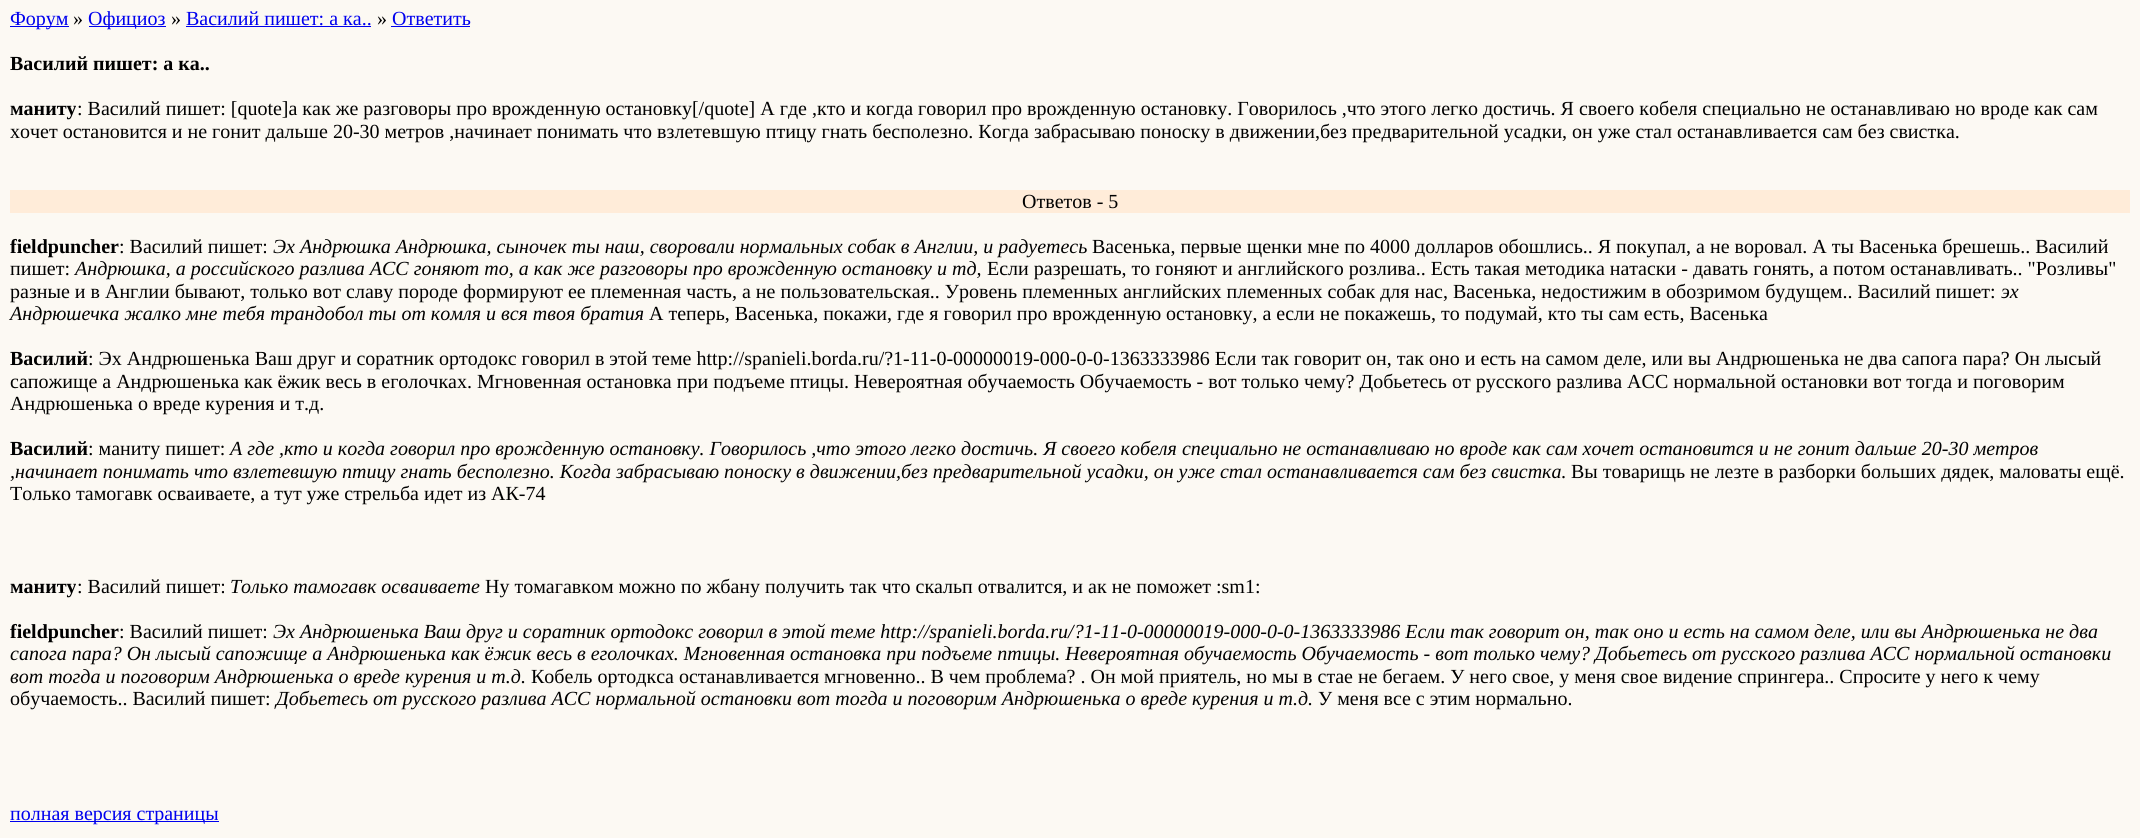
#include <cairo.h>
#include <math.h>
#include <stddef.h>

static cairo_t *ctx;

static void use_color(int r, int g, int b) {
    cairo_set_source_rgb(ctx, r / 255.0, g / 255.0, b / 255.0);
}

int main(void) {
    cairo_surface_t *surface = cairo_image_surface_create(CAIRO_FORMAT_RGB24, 2140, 838);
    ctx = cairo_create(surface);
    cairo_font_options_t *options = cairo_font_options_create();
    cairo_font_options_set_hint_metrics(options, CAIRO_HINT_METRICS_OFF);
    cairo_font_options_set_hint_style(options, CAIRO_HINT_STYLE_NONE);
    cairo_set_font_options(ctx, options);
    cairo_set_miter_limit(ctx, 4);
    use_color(252, 249, 243);
    cairo_paint(ctx);
    use_color(0, 0, 238);
    cairo_rectangle(ctx, 10, 26, 59, 1);
    cairo_fill(ctx);
    cairo_select_font_face(ctx, "Liberation Serif", CAIRO_FONT_SLANT_NORMAL, CAIRO_FONT_WEIGHT_NORMAL);
    cairo_set_font_size(ctx, 20);
    cairo_move_to(ctx, 10, 25);
    cairo_show_text(ctx, "Форум");
    use_color(0, 0, 0);
    cairo_move_to(ctx, 73, 25);
    cairo_show_text(ctx, "»");
    use_color(0, 0, 238);
    cairo_rectangle(ctx, 89, 26, 77, 1);
    cairo_fill(ctx);
    cairo_move_to(ctx, 88, 25);
    cairo_show_text(ctx, "Официоз");
    use_color(0, 0, 0);
    cairo_move_to(ctx, 171, 25);
    cairo_show_text(ctx, "»");
    use_color(0, 0, 238);
    cairo_move_to(ctx, 186, 25);
    cairo_show_text(ctx, "Василий пишет: а ка..");
    cairo_rectangle(ctx, 186, 26, 185, 1);
    cairo_fill(ctx);
    use_color(0, 0, 0);
    cairo_move_to(ctx, 377, 25);
    cairo_show_text(ctx, "»");
    use_color(0, 0, 238);
    cairo_move_to(ctx, 392, 25);
    cairo_show_text(ctx, "Ответить");
    cairo_rectangle(ctx, 391, 26, 79, 1);
    cairo_fill(ctx);
    cairo_select_font_face(ctx, "Liberation Serif", CAIRO_FONT_SLANT_NORMAL, CAIRO_FONT_WEIGHT_BOLD);
    use_color(0, 0, 0);
    cairo_move_to(ctx, 10, 70);
    cairo_show_text(ctx, "Василий пишет: а ка..");
    cairo_move_to(ctx, 10, 115);
    cairo_show_text(ctx, "маниту");
    cairo_select_font_face(ctx, "Liberation Serif", CAIRO_FONT_SLANT_NORMAL, CAIRO_FONT_WEIGHT_NORMAL);
    cairo_move_to(ctx, 77, 115);
    cairo_show_text(ctx, ": Василий пишет: [quote]а как же разговоры про врожденную остановку[/quote] А где ,кто и когда говорил про врожденную остановку. Говорилось ,что этого легко достичь. Я своего кобеля специально не останавливаю но вроде как сам");
    cairo_move_to(ctx, 10, 138);
    cairo_show_text(ctx, "хочет остановится и не гонит дальше 20-30 метров ,начинает понимать что взлетевшую птицу гнать бесполезно. Когда забрасываю поноску в движении,без предварительной усадки, он уже стал останавливается сам без свистка.");
    use_color(255, 236, 217);
    cairo_rectangle(ctx, 10, 190, 2120, 23);
    cairo_fill(ctx);
    use_color(0, 0, 0);
    cairo_move_to(ctx, 1022, 208);
    cairo_show_text(ctx, "Ответов - 5");
    cairo_select_font_face(ctx, "Liberation Serif", CAIRO_FONT_SLANT_NORMAL, CAIRO_FONT_WEIGHT_BOLD);
    cairo_move_to(ctx, 10, 253);
    cairo_show_text(ctx, "fieldpuncher");
    cairo_select_font_face(ctx, "Liberation Serif", CAIRO_FONT_SLANT_NORMAL, CAIRO_FONT_WEIGHT_NORMAL);
    cairo_move_to(ctx, 119, 253);
    cairo_show_text(ctx, ": Василий пишет:");
    cairo_select_font_face(ctx, "Liberation Serif", CAIRO_FONT_SLANT_ITALIC, CAIRO_FONT_WEIGHT_NORMAL);
    cairo_move_to(ctx, 273, 253);
    cairo_show_text(ctx, "Эх Андрюшка Андрюшка, сыночек ты наш, своровали нормальных собак в Англии, и радуетесь");
    cairo_select_font_face(ctx, "Liberation Serif", CAIRO_FONT_SLANT_NORMAL, CAIRO_FONT_WEIGHT_NORMAL);
    cairo_move_to(ctx, 1092, 253);
    cairo_show_text(ctx, "Васенька, первые щенки мне по 4000 долларов обошлись.. Я покупал, а не воровал. А ты Васенька брешешь.. Василий");
    cairo_move_to(ctx, 10, 275);
    cairo_show_text(ctx, "пишет:");
    cairo_select_font_face(ctx, "Liberation Serif", CAIRO_FONT_SLANT_ITALIC, CAIRO_FONT_WEIGHT_NORMAL);
    cairo_move_to(ctx, 75, 275);
    cairo_show_text(ctx, "Андрюшка, а российского разлива АСС гоняют то, а как же разговоры про врожденную остановку и тд,");
    cairo_select_font_face(ctx, "Liberation Serif", CAIRO_FONT_SLANT_NORMAL, CAIRO_FONT_WEIGHT_NORMAL);
    cairo_move_to(ctx, 987, 275);
    cairo_show_text(ctx, "Если разрешать, то гоняют и английского розлива.. Есть такая методика натаски - давать гонять, а потом останавливать.. \"Розливы\"");
    cairo_move_to(ctx, 10, 298);
    cairo_show_text(ctx, "разные и в Англии бывают, только вот славу породе формируют ее племенная часть, а не пользовательская.. Уровень племенных английских племенных собак для нас, Васенька, недостижим в обозримом будущем.. Василий пишет:");
    cairo_select_font_face(ctx, "Liberation Serif", CAIRO_FONT_SLANT_ITALIC, CAIRO_FONT_WEIGHT_NORMAL);
    cairo_move_to(ctx, 2001, 298);
    cairo_show_text(ctx, "эх");
    cairo_move_to(ctx, 10, 320);
    cairo_show_text(ctx, "Андрюшечка жалко мне тебя трандобол ты от комля и вся твоя братия");
    cairo_select_font_face(ctx, "Liberation Serif", CAIRO_FONT_SLANT_NORMAL, CAIRO_FONT_WEIGHT_NORMAL);
    cairo_move_to(ctx, 649, 320);
    cairo_show_text(ctx, "А теперь, Васенька, покажи, где я говорил про врожденную остановку, а если не покажешь, то подумай, кто ты сам есть, Васенька");
    cairo_select_font_face(ctx, "Liberation Serif", CAIRO_FONT_SLANT_NORMAL, CAIRO_FONT_WEIGHT_BOLD);
    cairo_move_to(ctx, 10, 365);
    cairo_show_text(ctx, "Василий");
    cairo_select_font_face(ctx, "Liberation Serif", CAIRO_FONT_SLANT_NORMAL, CAIRO_FONT_WEIGHT_NORMAL);
    cairo_move_to(ctx, 88, 365);
    cairo_show_text(ctx, ": Эх Андрюшенька Ваш друг и соратник ортодокс говорил в этой теме http://spanieli.borda.ru/?1-11-0-00000019-000-0-0-1363333986 Если так говорит он, так оно и есть на самом деле, или вы Андрюшенька не два сапога пара? Он лысый");
    cairo_move_to(ctx, 10, 388);
    cairo_show_text(ctx, "сапожище а Андрюшенька как ёжик весь в еголочках. Мгновенная остановка при подъеме птицы. Невероятная обучаемость Обучаемость - вот только чему? Добьетесь от русского разлива АСС нормальной остановки вот тогда и поговорим");
    cairo_move_to(ctx, 10, 410);
    cairo_show_text(ctx, "Андрюшенька о вреде курения и т.д.");
    cairo_select_font_face(ctx, "Liberation Serif", CAIRO_FONT_SLANT_NORMAL, CAIRO_FONT_WEIGHT_BOLD);
    cairo_move_to(ctx, 10, 455);
    cairo_show_text(ctx, "Василий");
    cairo_select_font_face(ctx, "Liberation Serif", CAIRO_FONT_SLANT_NORMAL, CAIRO_FONT_WEIGHT_NORMAL);
    cairo_move_to(ctx, 88, 455);
    cairo_show_text(ctx, ": маниту пишет:");
    cairo_select_font_face(ctx, "Liberation Serif", CAIRO_FONT_SLANT_ITALIC, CAIRO_FONT_WEIGHT_NORMAL);
    cairo_move_to(ctx, 230, 455);
    cairo_show_text(ctx, "А где ,кто и когда говорил про врожденную остановку. Говорилось ,что этого легко достичь. Я своего кобеля специально не останавливаю но вроде как сам хочет остановится и не гонит дальше 20-30 метров");
    cairo_move_to(ctx, 10, 478);
    cairo_show_text(ctx, ",начинает понимать что взлетевшую птицу гнать бесполезно. Когда забрасываю поноску в движении,без предварительной усадки, он уже стал останавливается сам без свистка.");
    cairo_select_font_face(ctx, "Liberation Serif", CAIRO_FONT_SLANT_NORMAL, CAIRO_FONT_WEIGHT_NORMAL);
    cairo_move_to(ctx, 1571, 478);
    cairo_show_text(ctx, "Вы товарищь не лезте в разборки больших дядек, маловаты ещё.");
    cairo_move_to(ctx, 10, 500);
    cairo_show_text(ctx, "Только тамогавк осваиваете, а тут уже стрельба идет из АК-74");
    cairo_select_font_face(ctx, "Liberation Serif", CAIRO_FONT_SLANT_NORMAL, CAIRO_FONT_WEIGHT_BOLD);
    cairo_move_to(ctx, 10, 593);
    cairo_show_text(ctx, "маниту");
    cairo_select_font_face(ctx, "Liberation Serif", CAIRO_FONT_SLANT_NORMAL, CAIRO_FONT_WEIGHT_NORMAL);
    cairo_move_to(ctx, 77, 593);
    cairo_show_text(ctx, ": Василий пишет:");
    cairo_select_font_face(ctx, "Liberation Serif", CAIRO_FONT_SLANT_ITALIC, CAIRO_FONT_WEIGHT_NORMAL);
    cairo_move_to(ctx, 230, 593);
    cairo_show_text(ctx, "Только тамогавк осваиваете");
    cairo_select_font_face(ctx, "Liberation Serif", CAIRO_FONT_SLANT_NORMAL, CAIRO_FONT_WEIGHT_NORMAL);
    cairo_move_to(ctx, 485, 593);
    cairo_show_text(ctx, "Ну томагавком можно по жбану получить так что скальп отвалится, и ак не поможет :sm1:");
    cairo_select_font_face(ctx, "Liberation Serif", CAIRO_FONT_SLANT_NORMAL, CAIRO_FONT_WEIGHT_BOLD);
    cairo_move_to(ctx, 10, 638);
    cairo_show_text(ctx, "fieldpuncher");
    cairo_select_font_face(ctx, "Liberation Serif", CAIRO_FONT_SLANT_NORMAL, CAIRO_FONT_WEIGHT_NORMAL);
    cairo_move_to(ctx, 119, 638);
    cairo_show_text(ctx, ": Василий пишет:");
    cairo_select_font_face(ctx, "Liberation Serif", CAIRO_FONT_SLANT_ITALIC, CAIRO_FONT_WEIGHT_NORMAL);
    cairo_move_to(ctx, 273, 638);
    cairo_show_text(ctx, "Эх Андрюшенька Ваш друг и соратник ортодокс говорил в этой теме http://spanieli.borda.ru/?1-11-0-00000019-000-0-0-1363333986 Если так говорит он, так оно и есть на самом деле, или вы Андрюшенька не два");
    cairo_move_to(ctx, 10, 660);
    cairo_show_text(ctx, "сапога пара? Он лысый сапожище а Андрюшенька как ёжик весь в еголочках. Мгновенная остановка при подъеме птицы. Невероятная обучаемость Обучаемость - вот только чему? Добьетесь от русского разлива АСС нормальной остановки");
    cairo_move_to(ctx, 10, 683);
    cairo_show_text(ctx, "вот тогда и поговорим Андрюшенька о вреде курения и т.д.");
    cairo_select_font_face(ctx, "Liberation Serif", CAIRO_FONT_SLANT_NORMAL, CAIRO_FONT_WEIGHT_NORMAL);
    cairo_move_to(ctx, 531, 683);
    cairo_show_text(ctx, "Кобель ортодкса останавливается мгновенно.. В чем проблема? . Он мой приятель, но мы в стае не бегаем. У него свое, у меня свое видение спрингера.. Спросите у него к чему");
    cairo_move_to(ctx, 10, 705);
    cairo_show_text(ctx, "обучаемость.. Василий пишет:");
    cairo_select_font_face(ctx, "Liberation Serif", CAIRO_FONT_SLANT_ITALIC, CAIRO_FONT_WEIGHT_NORMAL);
    cairo_move_to(ctx, 276, 705);
    cairo_show_text(ctx, "Добьетесь от русского разлива АСС нормальной остановки вот тогда и поговорим Андрюшенька о вреде курения и т.д.");
    cairo_select_font_face(ctx, "Liberation Serif", CAIRO_FONT_SLANT_NORMAL, CAIRO_FONT_WEIGHT_NORMAL);
    cairo_move_to(ctx, 1318, 705);
    cairo_show_text(ctx, "У меня все с этим нормально.");
    use_color(0, 0, 238);
    cairo_rectangle(ctx, 10, 821, 209, 1);
    cairo_fill(ctx);
    cairo_move_to(ctx, 10, 820);
    cairo_show_text(ctx, "полная версия страницы");
    cairo_surface_write_to_png(surface, "result.png");
    cairo_font_options_destroy(options);
    cairo_destroy(ctx);
    cairo_surface_destroy(surface);
    return 0;
}
